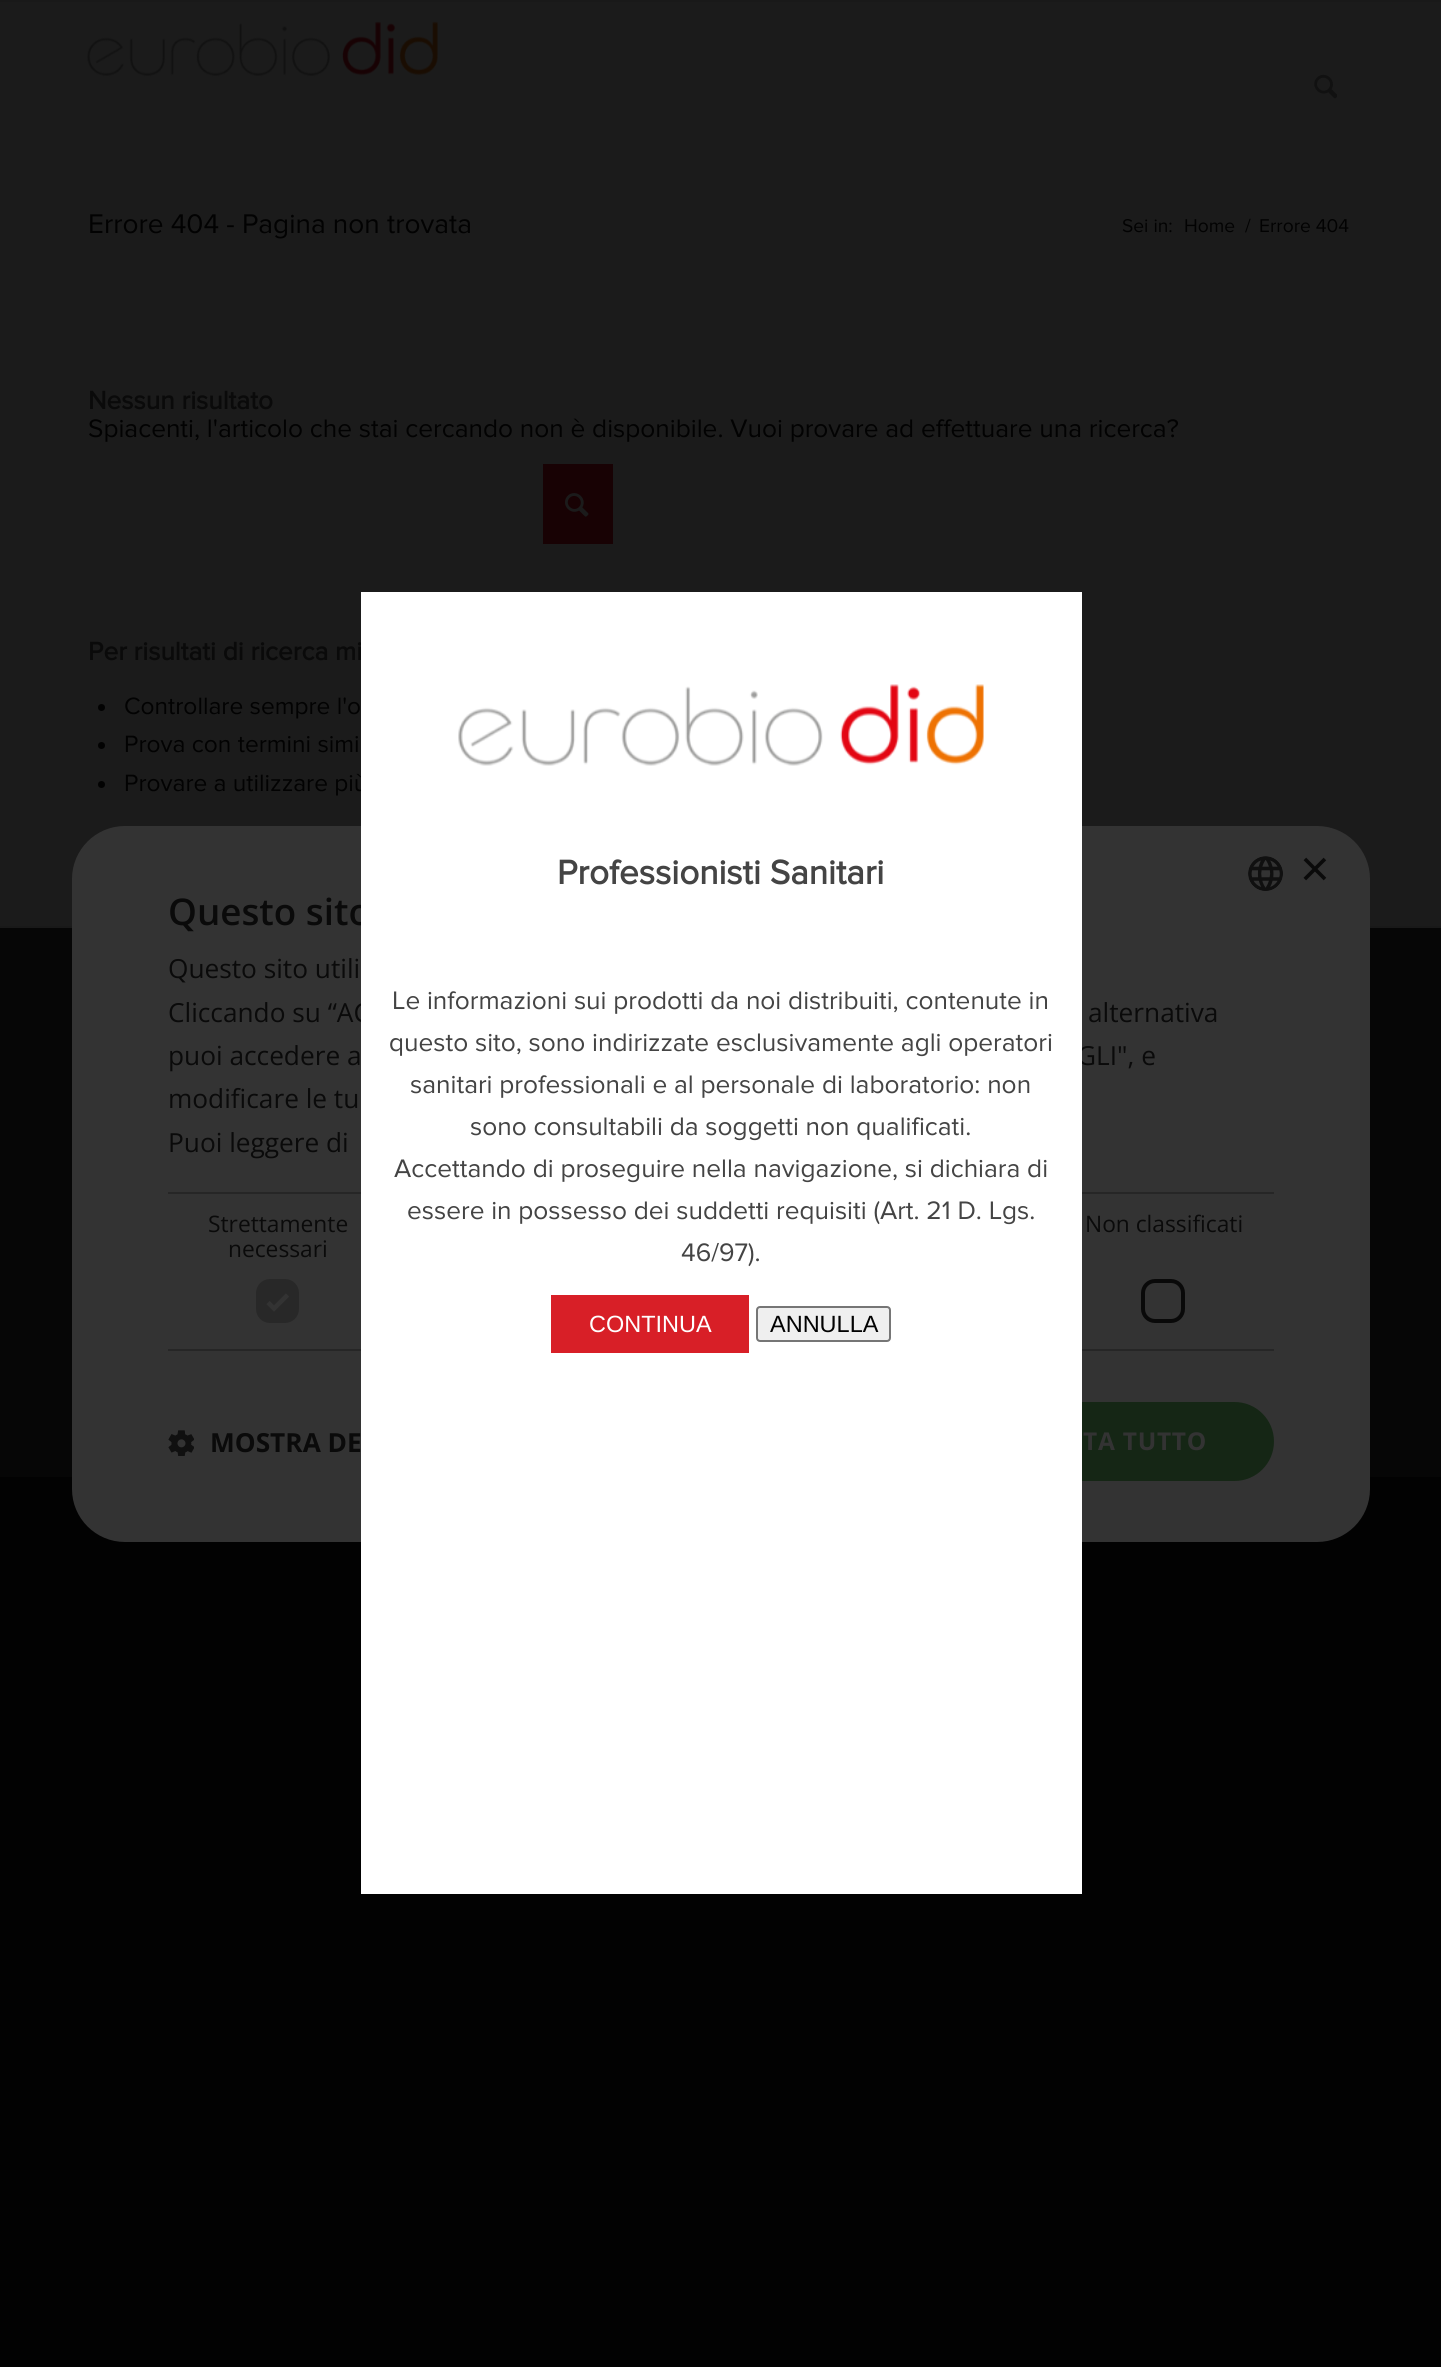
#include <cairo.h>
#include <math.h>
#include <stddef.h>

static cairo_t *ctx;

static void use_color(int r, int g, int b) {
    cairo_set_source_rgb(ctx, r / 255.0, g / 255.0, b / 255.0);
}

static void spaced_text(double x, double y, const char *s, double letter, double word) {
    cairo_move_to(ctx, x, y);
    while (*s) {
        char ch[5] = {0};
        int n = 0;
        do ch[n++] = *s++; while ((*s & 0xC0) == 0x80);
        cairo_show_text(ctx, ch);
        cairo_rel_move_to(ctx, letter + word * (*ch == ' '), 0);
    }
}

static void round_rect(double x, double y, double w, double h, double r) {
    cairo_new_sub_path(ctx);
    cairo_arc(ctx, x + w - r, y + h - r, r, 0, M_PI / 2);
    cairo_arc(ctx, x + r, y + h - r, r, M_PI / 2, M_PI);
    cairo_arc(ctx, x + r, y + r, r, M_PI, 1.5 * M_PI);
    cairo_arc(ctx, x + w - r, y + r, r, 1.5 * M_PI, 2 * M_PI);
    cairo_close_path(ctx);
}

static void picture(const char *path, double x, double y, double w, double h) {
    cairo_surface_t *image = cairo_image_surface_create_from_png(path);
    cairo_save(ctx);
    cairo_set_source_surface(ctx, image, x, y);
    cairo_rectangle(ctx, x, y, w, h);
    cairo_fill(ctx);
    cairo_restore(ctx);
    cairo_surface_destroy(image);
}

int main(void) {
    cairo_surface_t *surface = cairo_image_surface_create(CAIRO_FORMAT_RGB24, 1441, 2367);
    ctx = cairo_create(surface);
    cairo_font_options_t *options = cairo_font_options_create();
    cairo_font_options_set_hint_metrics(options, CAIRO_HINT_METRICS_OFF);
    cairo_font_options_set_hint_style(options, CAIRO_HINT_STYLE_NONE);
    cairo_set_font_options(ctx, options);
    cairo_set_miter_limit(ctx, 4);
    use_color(2, 2, 2);
    cairo_paint(ctx);
    use_color(27, 27, 27);
    cairo_rectangle(ctx, 0, 2, 1441, 924);
    cairo_fill(ctx);
    use_color(25, 25, 25);
    cairo_rectangle(ctx, 0, 0, 1441, 2);
    cairo_fill(ctx);
    picture("img1.png", 87, 21, 351, 56);
    picture("img2.png", 1314, 74, 23, 25);
    cairo_select_font_face(ctx, "Proxima Nova", CAIRO_FONT_SLANT_NORMAL, CAIRO_FONT_WEIGHT_NORMAL);
    cairo_set_font_size(ctx, 28);
    use_color(2, 2, 2);
    cairo_move_to(ctx, 88, 233);
    cairo_show_text(ctx, "Errore 404 - Pagina non trovata");
    cairo_set_font_size(ctx, 19.25);
    cairo_move_to(ctx, 1122, 232);
    cairo_show_text(ctx, "Sei in:");
    cairo_move_to(ctx, 1184, 232);
    cairo_show_text(ctx, "Home");
    cairo_move_to(ctx, 1245, 232);
    cairo_show_text(ctx, "/");
    cairo_move_to(ctx, 1259, 232);
    cairo_show_text(ctx, "Errore 404");
    cairo_select_font_face(ctx, "Proxima Nova", CAIRO_FONT_SLANT_NORMAL, CAIRO_FONT_WEIGHT_BOLD);
    cairo_set_font_size(ctx, 26.25);
    use_color(10, 10, 10);
    cairo_move_to(ctx, 88, 409);
    cairo_show_text(ctx, "Nessun risultato");
    cairo_select_font_face(ctx, "Proxima Nova", CAIRO_FONT_SLANT_NORMAL, CAIRO_FONT_WEIGHT_NORMAL);
    use_color(2, 2, 2);
    cairo_move_to(ctx, 88, 437);
    cairo_show_text(ctx, "Spiacenti, l'articolo che stai cercando non è disponibile. Vuoi provare ad effettuare una ricerca?");
    use_color(24, 2, 4);
    cairo_rectangle(ctx, 543, 464, 70, 80);
    cairo_fill(ctx);
    picture("img3.png", 565, 493, 24, 24);
    cairo_select_font_face(ctx, "Proxima Nova", CAIRO_FONT_SLANT_NORMAL, CAIRO_FONT_WEIGHT_BOLD);
    use_color(10, 10, 10);
    cairo_move_to(ctx, 88, 660);
    cairo_show_text(ctx, "Per risultati di ricerca mi");
    use_color(2, 2, 2);
    cairo_new_path(ctx);
    cairo_arc(ctx, 101.5, 707.5, 3.5, 0, 2 * M_PI);
    cairo_fill(ctx);
    cairo_select_font_face(ctx, "Proxima Nova", CAIRO_FONT_SLANT_NORMAL, CAIRO_FONT_WEIGHT_NORMAL);
    cairo_set_font_size(ctx, 24.5);
    cairo_move_to(ctx, 124, 714);
    cairo_show_text(ctx, "Controllare sempre l'o");
    cairo_new_path(ctx);
    cairo_arc(ctx, 101.5, 745.5, 3.5, 0, 2 * M_PI);
    cairo_fill(ctx);
    cairo_move_to(ctx, 124, 752);
    cairo_show_text(ctx, "Prova con termini simi");
    cairo_new_path(ctx);
    cairo_arc(ctx, 101.5, 784.5, 3.5, 0, 2 * M_PI);
    cairo_fill(ctx);
    cairo_move_to(ctx, 124, 791);
    cairo_show_text(ctx, "Provare a utilizzare più");
    use_color(6, 6, 6);
    cairo_rectangle(ctx, 0, 928, 1441, 549);
    cairo_fill(ctx);
    use_color(25, 25, 25);
    cairo_rectangle(ctx, 0, 926, 1441, 2);
    cairo_fill(ctx);
    use_color(51, 51, 51);
    round_rect(72, 826, 1298, 716, 53);
    cairo_fill(ctx);
    picture("img4.png", 1248, 856, 35, 35);
    cairo_select_font_face(ctx, "Liberation Sans", CAIRO_FONT_SLANT_NORMAL, CAIRO_FONT_WEIGHT_NORMAL);
    cairo_set_font_size(ctx, 51);
    use_color(10, 10, 10);
    cairo_move_to(ctx, 1300, 886);
    cairo_show_text(ctx, "×");
    cairo_select_font_face(ctx, "Open Sans SemiBold", CAIRO_FONT_SLANT_NORMAL, CAIRO_FONT_WEIGHT_NORMAL);
    cairo_set_font_size(ctx, 36.75);
    cairo_move_to(ctx, 168, 925);
    cairo_show_text(ctx, "Questo sito");
    cairo_select_font_face(ctx, "Open Sans", CAIRO_FONT_SLANT_NORMAL, CAIRO_FONT_WEIGHT_NORMAL);
    cairo_set_font_size(ctx, 26.25);
    cairo_move_to(ctx, 168, 978);
    cairo_show_text(ctx, "Questo sito utili");
    cairo_move_to(ctx, 168, 1022);
    cairo_show_text(ctx, "Cliccando su “AC");
    cairo_move_to(ctx, 1088, 1022);
    cairo_show_text(ctx, "alternativa");
    cairo_move_to(ctx, 168, 1065);
    cairo_show_text(ctx, "puoi accedere a");
    cairo_move_to(ctx, 1077, 1065);
    cairo_show_text(ctx, "GLI\", e");
    cairo_move_to(ctx, 168, 1108);
    cairo_show_text(ctx, "modificare le tu");
    cairo_move_to(ctx, 168, 1152);
    cairo_show_text(ctx, "Puoi leggere di");
    use_color(38, 38, 38);
    cairo_rectangle(ctx, 168, 1192, 193, 2);
    cairo_fill(ctx);
    cairo_rectangle(ctx, 168, 1349, 193, 2);
    cairo_fill(ctx);
    cairo_set_font_size(ctx, 22.75);
    use_color(10, 10, 10);
    cairo_move_to(ctx, 208, 1232);
    cairo_show_text(ctx, "Strettamente");
    cairo_move_to(ctx, 228, 1257);
    cairo_show_text(ctx, "necessari");
    use_color(40, 40, 40);
    round_rect(256, 1279, 43, 44, 14);
    cairo_fill(ctx);
    cairo_new_path(ctx);
    cairo_move_to(ctx, 268, 1302.5);
    cairo_line_to(ctx, 274, 1308.5);
    cairo_line_to(ctx, 287.5, 1295);
    use_color(51, 51, 51);
    cairo_set_line_width(ctx, 4.6);
    cairo_stroke(ctx);
    use_color(38, 38, 38);
    cairo_rectangle(ctx, 1082, 1192, 192, 2);
    cairo_fill(ctx);
    cairo_rectangle(ctx, 1082, 1349, 192, 2);
    cairo_fill(ctx);
    use_color(10, 10, 10);
    cairo_move_to(ctx, 1085, 1232);
    cairo_show_text(ctx, "Non classificati");
    round_rect(1143, 1281, 40, 40, 12);
    use_color(9, 9, 9);
    cairo_set_line_width(ctx, 4);
    cairo_stroke(ctx);
    picture("img5.png", 168, 1430, 26, 26);
    cairo_select_font_face(ctx, "Open Sans", CAIRO_FONT_SLANT_NORMAL, CAIRO_FONT_WEIGHT_BOLD);
    cairo_set_font_size(ctx, 26.25);
    use_color(10, 10, 10);
    cairo_move_to(ctx, 210, 1452);
    cairo_show_text(ctx, "MOSTRA DE");
    use_color(21, 38, 21);
    round_rect(936, 1402, 338, 79, 39.5);
    cairo_fill(ctx);
    cairo_set_font_size(ctx, 24.5);
    use_color(51, 51, 51);
    spaced_text(1083, 1450, "TA TUTTO", 0.75, 0);
    use_color(255, 255, 255);
    cairo_rectangle(ctx, 361, 592, 721, 1302);
    cairo_fill(ctx);
    picture("img6.png", 458, 684, 526, 82);
    cairo_select_font_face(ctx, "Proxima Nova", CAIRO_FONT_SLANT_NORMAL, CAIRO_FONT_WEIGHT_BOLD);
    cairo_set_font_size(ctx, 35);
    use_color(68, 68, 68);
    cairo_move_to(ctx, 557, 884);
    cairo_show_text(ctx, "Professionisti Sanitari");
    cairo_select_font_face(ctx, "Proxima Nova", CAIRO_FONT_SLANT_NORMAL, CAIRO_FONT_WEIGHT_NORMAL);
    cairo_set_font_size(ctx, 26.25);
    cairo_move_to(ctx, 392, 1009);
    cairo_show_text(ctx, "Le informazioni sui prodotti da noi distribuiti, contenute in");
    cairo_move_to(ctx, 389, 1051);
    cairo_show_text(ctx, "questo sito, sono indirizzate esclusivamente agli operatori");
    cairo_move_to(ctx, 410, 1093);
    cairo_show_text(ctx, "sanitari professionali e al personale di laboratorio: non");
    cairo_move_to(ctx, 470, 1135);
    cairo_show_text(ctx, "sono consultabili da soggetti non qualificati.");
    cairo_move_to(ctx, 394, 1177);
    cairo_show_text(ctx, "Accettando di proseguire nella navigazione, si dichiara di");
    cairo_move_to(ctx, 407, 1219);
    cairo_show_text(ctx, "essere in possesso dei suddetti requisiti (Art. 21 D. Lgs.");
    cairo_move_to(ctx, 681, 1261);
    cairo_show_text(ctx, "46/97).");
    use_color(216, 31, 39);
    cairo_rectangle(ctx, 551, 1295, 198, 58);
    cairo_fill(ctx);
    cairo_select_font_face(ctx, "Liberation Sans", CAIRO_FONT_SLANT_NORMAL, CAIRO_FONT_WEIGHT_NORMAL);
    cairo_set_font_size(ctx, 23.5);
    use_color(255, 255, 255);
    cairo_move_to(ctx, 589, 1332);
    cairo_show_text(ctx, "CONTINUA");
    use_color(239, 239, 239);
    round_rect(757, 1307, 133, 34, 3);
    cairo_fill_preserve(ctx);
    use_color(118, 118, 118);
    cairo_set_line_width(ctx, 2);
    cairo_stroke(ctx);
    use_color(2, 2, 2);
    cairo_move_to(ctx, 770, 1332);
    cairo_show_text(ctx, "ANNULLA");
    cairo_surface_write_to_png(surface, "result.png");
    cairo_font_options_destroy(options);
    cairo_destroy(ctx);
    cairo_surface_destroy(surface);
    return 0;
}
